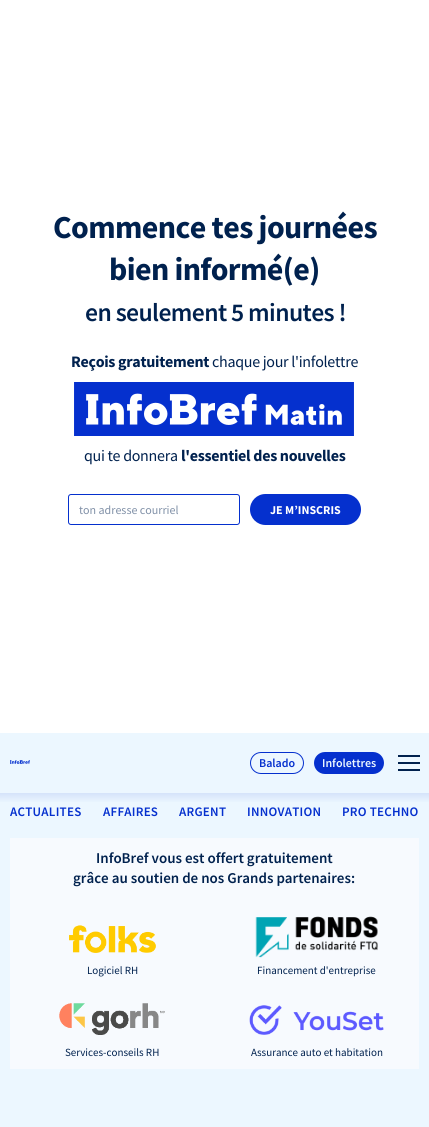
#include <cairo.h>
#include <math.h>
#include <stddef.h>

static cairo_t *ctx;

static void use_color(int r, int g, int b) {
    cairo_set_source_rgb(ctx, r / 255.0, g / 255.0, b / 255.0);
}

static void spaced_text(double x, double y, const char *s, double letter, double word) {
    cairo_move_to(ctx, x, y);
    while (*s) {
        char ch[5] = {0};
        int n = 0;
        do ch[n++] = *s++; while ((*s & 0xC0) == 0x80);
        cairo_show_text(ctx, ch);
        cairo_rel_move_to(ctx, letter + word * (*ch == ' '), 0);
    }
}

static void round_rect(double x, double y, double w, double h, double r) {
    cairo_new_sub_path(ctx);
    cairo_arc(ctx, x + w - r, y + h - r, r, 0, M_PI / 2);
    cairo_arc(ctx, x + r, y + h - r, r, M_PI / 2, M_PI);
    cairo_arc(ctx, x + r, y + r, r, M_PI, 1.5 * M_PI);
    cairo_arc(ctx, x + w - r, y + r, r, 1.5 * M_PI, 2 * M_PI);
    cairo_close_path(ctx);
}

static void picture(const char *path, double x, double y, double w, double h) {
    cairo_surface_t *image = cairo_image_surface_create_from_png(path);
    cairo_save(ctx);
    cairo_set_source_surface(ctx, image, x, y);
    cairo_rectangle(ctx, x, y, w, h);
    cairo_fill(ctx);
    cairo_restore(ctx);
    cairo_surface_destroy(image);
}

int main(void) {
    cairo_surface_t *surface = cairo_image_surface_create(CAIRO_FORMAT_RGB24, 429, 1127);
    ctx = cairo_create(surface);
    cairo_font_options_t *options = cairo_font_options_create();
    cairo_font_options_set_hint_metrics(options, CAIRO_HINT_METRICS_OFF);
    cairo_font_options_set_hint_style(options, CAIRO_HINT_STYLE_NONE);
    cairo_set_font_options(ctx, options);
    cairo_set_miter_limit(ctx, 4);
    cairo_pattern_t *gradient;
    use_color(236, 247, 255);
    cairo_paint(ctx);
    use_color(255, 255, 255);
    cairo_rectangle(ctx, 0, 0, 429, 733);
    cairo_fill(ctx);
    cairo_select_font_face(ctx, "Source Sans Pro", CAIRO_FONT_SLANT_NORMAL, CAIRO_FONT_WEIGHT_BOLD);
    cairo_set_font_size(ctx, 32);
    use_color(0, 33, 78);
    spaced_text(53, 238, "Commence tes journées", -0.6, 0);
    spaced_text(109, 280, "bien informé(e)", -0.6, 0);
    cairo_select_font_face(ctx, "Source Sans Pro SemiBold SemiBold", CAIRO_FONT_SLANT_NORMAL, CAIRO_FONT_WEIGHT_NORMAL);
    cairo_set_font_size(ctx, 25.6);
    spaced_text(85, 321, "en seulement 5 minutes !", -0.6, 0);
    cairo_select_font_face(ctx, "Source Sans Pro", CAIRO_FONT_SLANT_NORMAL, CAIRO_FONT_WEIGHT_BOLD);
    cairo_set_font_size(ctx, 16);
    spaced_text(71, 367, "Reçois gratuitement", -0.3, 0);
    cairo_select_font_face(ctx, "Source Sans Pro", CAIRO_FONT_SLANT_NORMAL, CAIRO_FONT_WEIGHT_NORMAL);
    spaced_text(212, 367, "chaque jour l'infolettre", -0.3, 0);
    picture("img1.png", 74, 382, 280, 54);
    spaced_text(84, 461, "qui te donnera", -0.3, 0);
    cairo_select_font_face(ctx, "Source Sans Pro", CAIRO_FONT_SLANT_NORMAL, CAIRO_FONT_WEIGHT_BOLD);
    spaced_text(181, 461, "l'essentiel des nouvelles", -0.3, 0);
    round_rect(68.5, 494.5, 171, 30, 2.5);
    use_color(5, 48, 206);
    cairo_set_line_width(ctx, 1);
    cairo_stroke(ctx);
    cairo_select_font_face(ctx, "Source Sans Pro", CAIRO_FONT_SLANT_NORMAL, CAIRO_FONT_WEIGHT_NORMAL);
    cairo_set_font_size(ctx, 12);
    use_color(128, 144, 167);
    cairo_move_to(ctx, 79, 514);
    cairo_show_text(ctx, "ton adresse courriel");
    use_color(5, 48, 206);
    round_rect(250, 494, 111, 31, 15.5);
    cairo_fill(ctx);
    cairo_select_font_face(ctx, "Source Sans Pro", CAIRO_FONT_SLANT_NORMAL, CAIRO_FONT_WEIGHT_BOLD);
    use_color(255, 255, 255);
    cairo_move_to(ctx, 270, 514);
    cairo_show_text(ctx, "JE M’INSCRIS");
    picture("img2.png", 10, 760, 20, 4);
    round_rect(250.5, 752.5, 53, 21, 10.5);
    use_color(5, 48, 206);
    cairo_stroke(ctx);
    cairo_select_font_face(ctx, "Source Sans Pro SemiBold SemiBold", CAIRO_FONT_SLANT_NORMAL, CAIRO_FONT_WEIGHT_NORMAL);
    cairo_move_to(ctx, 259, 767);
    cairo_show_text(ctx, "Balado");
    round_rect(314, 752, 70, 22, 11);
    cairo_fill(ctx);
    use_color(236, 247, 255);
    cairo_move_to(ctx, 322, 767);
    cairo_show_text(ctx, "Infolettres");
    use_color(0, 33, 78);
    cairo_rectangle(ctx, 398, 755, 22, 2);
    cairo_fill(ctx);
    cairo_rectangle(ctx, 398, 762, 22, 2);
    cairo_fill(ctx);
    cairo_rectangle(ctx, 398, 769, 22, 2);
    cairo_fill(ctx);
    gradient = cairo_pattern_create_linear(215, 793, 215, 803);
    cairo_pattern_add_color_stop_rgba(gradient, 0, 0.835, 0.89, 0.98, 1);
    cairo_pattern_add_color_stop_rgba(gradient, 1, 0.925, 0.969, 1, 1);
    cairo_set_source(ctx, gradient);
    cairo_pattern_destroy(gradient);
    cairo_rectangle(ctx, 0, 793, 429, 9);
    cairo_fill(ctx);
    cairo_set_font_size(ctx, 13);
    use_color(5, 48, 206);
    spaced_text(10, 816, "ACTUALITES", 0.25, 0);
    spaced_text(103, 816, "AFFAIRES", 0.25, 0);
    spaced_text(179, 816, "ARGENT", 0.25, 0);
    spaced_text(247, 816, "INNOVATION", 0.25, 0);
    spaced_text(342, 816, "PRO TECHNO", 0.25, 0);
    use_color(247, 250, 254);
    cairo_rectangle(ctx, 10, 838, 409, 231);
    cairo_fill(ctx);
    cairo_set_font_size(ctx, 15);
    use_color(0, 33, 78);
    cairo_move_to(ctx, 96, 863);
    cairo_show_text(ctx, "InfoBref vous est offert gratuitement");
    cairo_move_to(ctx, 73, 883);
    cairo_show_text(ctx, "grâce au soutien de nos Grands partenaires:");
    picture("img3.png", 69, 925, 87, 28);
    cairo_select_font_face(ctx, "Source Sans Pro", CAIRO_FONT_SLANT_NORMAL, CAIRO_FONT_WEIGHT_NORMAL);
    cairo_set_font_size(ctx, 11);
    cairo_move_to(ctx, 87, 974);
    cairo_show_text(ctx, "Logiciel RH");
    picture("img4.png", 255, 916, 123, 42);
    cairo_move_to(ctx, 257, 974);
    cairo_show_text(ctx, "Financement d'entreprise");
    picture("img5.png", 59, 1003, 106, 32);
    cairo_move_to(ctx, 65, 1056);
    cairo_show_text(ctx, "Services-conseils RH");
    picture("img6.png", 249, 1005, 135, 30);
    cairo_move_to(ctx, 251, 1056);
    cairo_show_text(ctx, "Assurance auto et habitation");
    cairo_surface_write_to_png(surface, "result.png");
    cairo_font_options_destroy(options);
    cairo_destroy(ctx);
    cairo_surface_destroy(surface);
    return 0;
}
